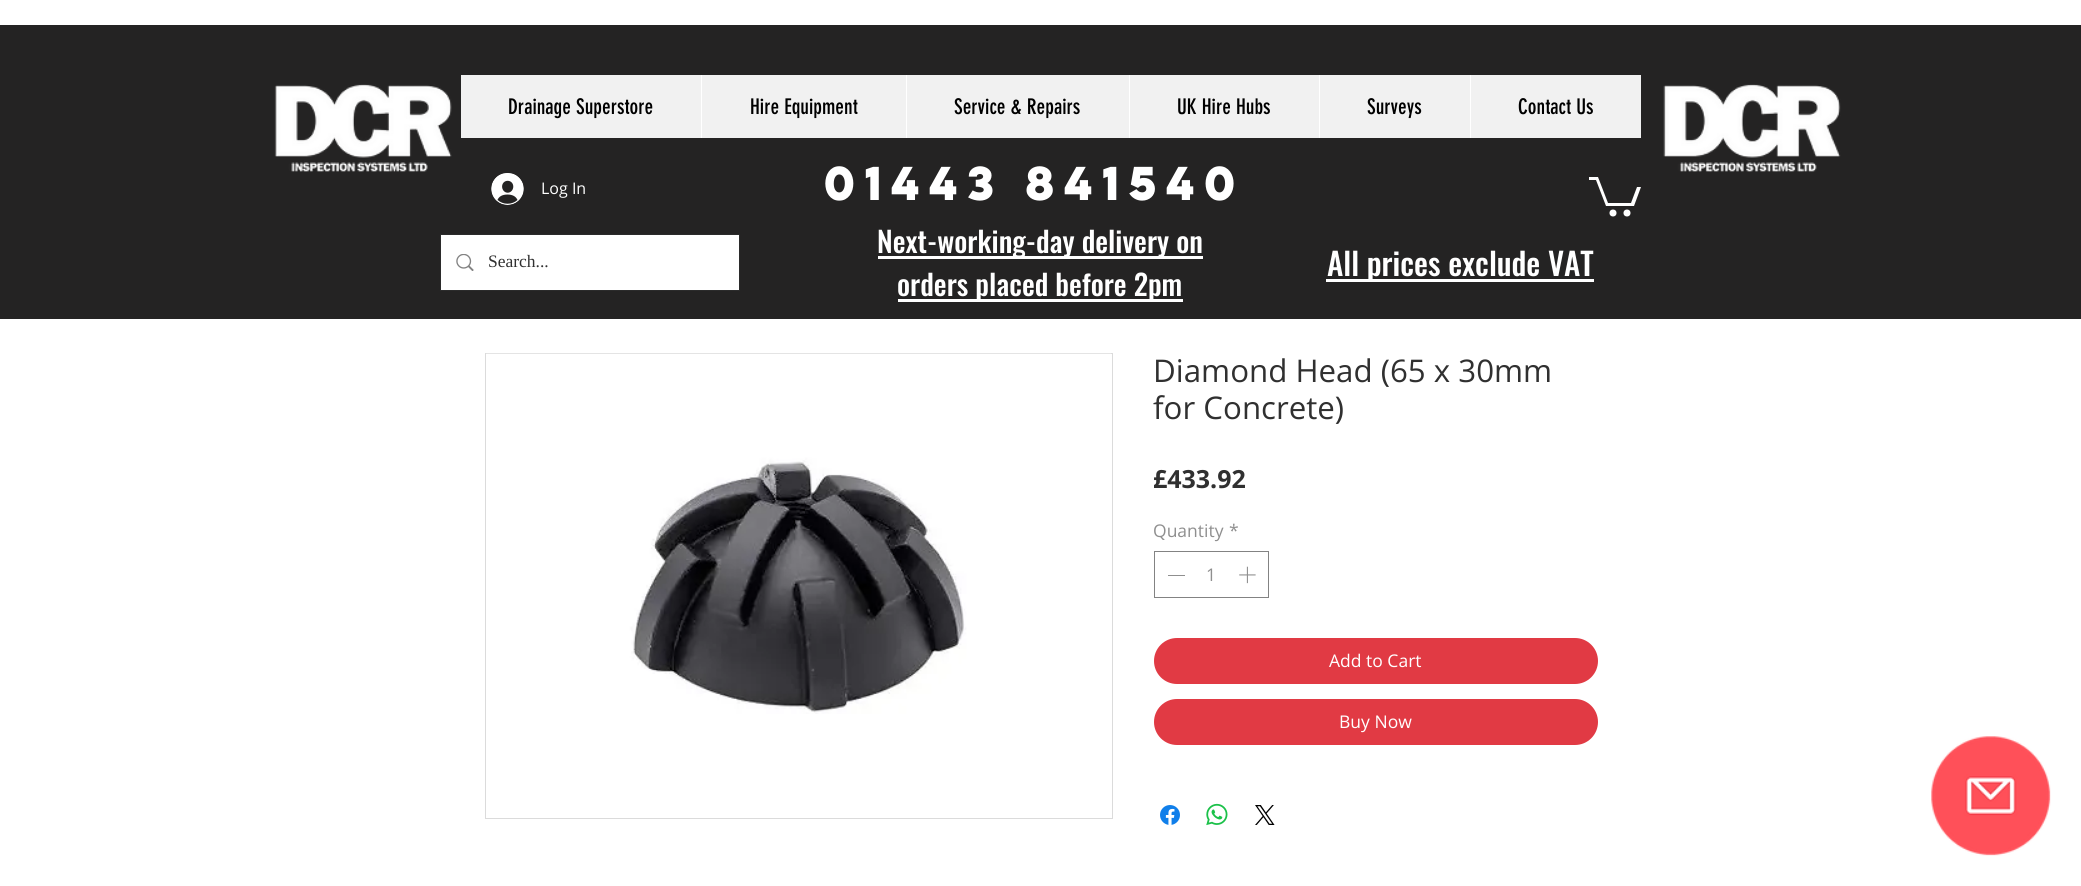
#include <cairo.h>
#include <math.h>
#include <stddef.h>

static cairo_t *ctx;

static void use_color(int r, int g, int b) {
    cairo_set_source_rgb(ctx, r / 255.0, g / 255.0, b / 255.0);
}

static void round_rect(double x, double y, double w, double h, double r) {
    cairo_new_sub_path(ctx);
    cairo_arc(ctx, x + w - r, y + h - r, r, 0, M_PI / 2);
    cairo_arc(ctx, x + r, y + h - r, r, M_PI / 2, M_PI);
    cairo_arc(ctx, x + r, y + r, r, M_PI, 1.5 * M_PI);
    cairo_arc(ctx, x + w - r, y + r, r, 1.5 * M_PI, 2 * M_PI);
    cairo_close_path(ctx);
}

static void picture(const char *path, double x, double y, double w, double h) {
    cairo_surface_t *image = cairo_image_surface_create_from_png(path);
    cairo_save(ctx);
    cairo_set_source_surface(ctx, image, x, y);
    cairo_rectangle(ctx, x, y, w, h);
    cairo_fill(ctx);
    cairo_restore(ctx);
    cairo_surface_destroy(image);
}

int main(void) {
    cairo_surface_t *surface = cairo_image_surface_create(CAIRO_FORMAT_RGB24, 2081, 886);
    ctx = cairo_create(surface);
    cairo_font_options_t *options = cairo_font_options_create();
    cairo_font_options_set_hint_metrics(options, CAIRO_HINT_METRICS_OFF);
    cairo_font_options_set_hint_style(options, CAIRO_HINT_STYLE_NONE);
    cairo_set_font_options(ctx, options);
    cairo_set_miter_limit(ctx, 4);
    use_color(255, 255, 255);
    cairo_paint(ctx);
    use_color(36, 35, 35);
    cairo_rectangle(ctx, 0, 25, 2081, 294);
    cairo_fill(ctx);
    picture("img1.png", 274, 84, 178, 88);
    use_color(241, 241, 241);
    cairo_rectangle(ctx, 461, 75, 1180, 63);
    cairo_fill(ctx);
    cairo_select_font_face(ctx, "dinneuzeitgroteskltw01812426", CAIRO_FONT_SLANT_NORMAL, CAIRO_FONT_WEIGHT_NORMAL);
    cairo_set_font_size(ctx, 21.25);
    use_color(0, 0, 0);
    cairo_move_to(ctx, 508, 114);
    cairo_show_text(ctx, "Drainage Superstore");
    use_color(255, 255, 255);
    cairo_rectangle(ctx, 701, 75, 1, 63);
    cairo_fill(ctx);
    use_color(0, 0, 0);
    cairo_move_to(ctx, 750, 114);
    cairo_show_text(ctx, "Hire Equipment");
    use_color(255, 255, 255);
    cairo_rectangle(ctx, 906, 75, 1, 63);
    cairo_fill(ctx);
    use_color(0, 0, 0);
    cairo_move_to(ctx, 954, 114);
    cairo_show_text(ctx, "Service & Repairs");
    use_color(255, 255, 255);
    cairo_rectangle(ctx, 1129, 75, 1, 63);
    cairo_fill(ctx);
    use_color(0, 0, 0);
    cairo_move_to(ctx, 1177, 114);
    cairo_show_text(ctx, "UK Hire Hubs");
    use_color(255, 255, 255);
    cairo_rectangle(ctx, 1319, 75, 1, 63);
    cairo_fill(ctx);
    use_color(0, 0, 0);
    cairo_move_to(ctx, 1367, 114);
    cairo_show_text(ctx, "Surveys");
    use_color(255, 255, 255);
    cairo_rectangle(ctx, 1470, 75, 1, 63);
    cairo_fill(ctx);
    use_color(0, 0, 0);
    cairo_move_to(ctx, 1518, 114);
    cairo_show_text(ctx, "Contact Us");
    picture("img2.png", 1663, 84, 178, 88);
    picture("img3.png", 491, 173, 33, 32);
    cairo_select_font_face(ctx, "Open Sans", CAIRO_FONT_SLANT_NORMAL, CAIRO_FONT_WEIGHT_NORMAL);
    cairo_set_font_size(ctx, 16);
    use_color(255, 255, 255);
    cairo_move_to(ctx, 541, 194);
    cairo_show_text(ctx, "Log In");
    cairo_select_font_face(ctx, "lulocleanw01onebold", CAIRO_FONT_SLANT_NORMAL, CAIRO_FONT_WEIGHT_BOLD);
    cairo_set_font_size(ctx, 42.5);
    cairo_move_to(ctx, 824, 200);
    cairo_show_text(ctx, "01443 841540");
    cairo_new_path(ctx);
    cairo_move_to(ctx, 1641, 187);
    cairo_line_to(ctx, 1634, 206);
    cairo_line_to(ctx, 1606, 206);
    cairo_line_to(ctx, 1596, 180);
    cairo_line_to(ctx, 1589, 180);
    cairo_line_to(ctx, 1589, 177);
    cairo_line_to(ctx, 1598, 177);
    cairo_line_to(ctx, 1608, 203);
    cairo_line_to(ctx, 1631, 203);
    cairo_line_to(ctx, 1637, 187);
    cairo_fill(ctx);
    cairo_arc(ctx, 1627, 213, 3.5, 0, 2 * M_PI);
    cairo_fill(ctx);
    cairo_arc(ctx, 1613, 213, 3.5, 0, 2 * M_PI);
    cairo_fill(ctx);
    cairo_rectangle(ctx, 440.5, 234.5, 299, 56);
    use_color(43, 43, 43);
    cairo_set_line_width(ctx, 1);
    cairo_stroke(ctx);
    use_color(255, 255, 255);
    cairo_rectangle(ctx, 441, 235, 298, 55);
    cairo_fill(ctx);
    picture("img4.png", 456, 254, 18, 17);
    cairo_select_font_face(ctx, "Liberation Serif", CAIRO_FONT_SLANT_NORMAL, CAIRO_FONT_WEIGHT_NORMAL);
    cairo_set_font_size(ctx, 17.5);
    use_color(48, 48, 48);
    cairo_move_to(ctx, 488, 267);
    cairo_show_text(ctx, "Search...");
    use_color(255, 255, 255);
    cairo_rectangle(ctx, 878, 256, 325, 3);
    cairo_fill(ctx);
    cairo_select_font_face(ctx, "Oswald Medium", CAIRO_FONT_SLANT_NORMAL, CAIRO_FONT_WEIGHT_NORMAL);
    cairo_set_font_size(ctx, 28.75);
    cairo_move_to(ctx, 877, 253);
    cairo_show_text(ctx, "Next-working-day delivery on");
    cairo_rectangle(ctx, 898, 299, 285, 3);
    cairo_fill(ctx);
    cairo_move_to(ctx, 897, 296);
    cairo_show_text(ctx, "orders placed before 2pm");
    cairo_rectangle(ctx, 1326, 279, 268, 3);
    cairo_fill(ctx);
    cairo_set_font_size(ctx, 31.25);
    cairo_move_to(ctx, 1327, 276);
    cairo_show_text(ctx, "All prices exclude VAT");
    cairo_rectangle(ctx, 485.5, 353.5, 627, 465);
    use_color(219, 219, 219);
    cairo_stroke(ctx);
    picture("img5.png", 486, 353, 625, 361);
    cairo_select_font_face(ctx, "Open Sans", CAIRO_FONT_SLANT_NORMAL, CAIRO_FONT_WEIGHT_NORMAL);
    use_color(48, 48, 48);
    cairo_move_to(ctx, 1153, 382);
    cairo_show_text(ctx, "Diamond Head (65 x 30mm");
    cairo_move_to(ctx, 1153, 419);
    cairo_show_text(ctx, "for Concrete)");
    cairo_select_font_face(ctx, "Open Sans", CAIRO_FONT_SLANT_NORMAL, CAIRO_FONT_WEIGHT_BOLD);
    cairo_set_font_size(ctx, 25);
    cairo_move_to(ctx, 1153, 488);
    cairo_show_text(ctx, "£433.92");
    cairo_select_font_face(ctx, "Open Sans", CAIRO_FONT_SLANT_NORMAL, CAIRO_FONT_WEIGHT_NORMAL);
    cairo_set_font_size(ctx, 17.5);
    use_color(143, 143, 143);
    cairo_move_to(ctx, 1153, 537);
    cairo_show_text(ctx, "Quantity");
    cairo_move_to(ctx, 1229, 537);
    cairo_show_text(ctx, "*");
    cairo_rectangle(ctx, 1154.5, 551.5, 114, 46);
    use_color(131, 131, 131);
    cairo_stroke(ctx);
    use_color(143, 143, 143);
    cairo_rectangle(ctx, 1168, 575, 17, 1);
    cairo_fill(ctx);
    cairo_move_to(ctx, 1206, 581);
    cairo_show_text(ctx, "1");
    picture("img6.png", 1239, 566, 17, 18);
    use_color(225, 58, 68);
    round_rect(1154, 638, 444, 46, 23);
    cairo_fill(ctx);
    use_color(255, 255, 255);
    cairo_move_to(ctx, 1329, 667);
    cairo_show_text(ctx, "Add to Cart");
    use_color(225, 58, 68);
    round_rect(1154, 699, 444, 46, 23);
    cairo_fill(ctx);
    use_color(255, 255, 255);
    cairo_move_to(ctx, 1339, 728);
    cairo_show_text(ctx, "Buy Now");
    picture("img7.png", 1160, 805, 20, 20);
    picture("img8.png", 1206, 803, 22, 23);
    picture("img9.png", 1255, 805, 20, 20);
    picture("img10.png", 1931, 736, 120, 120);
    cairo_surface_write_to_png(surface, "result.png");
    cairo_font_options_destroy(options);
    cairo_destroy(ctx);
    cairo_surface_destroy(surface);
    return 0;
}
